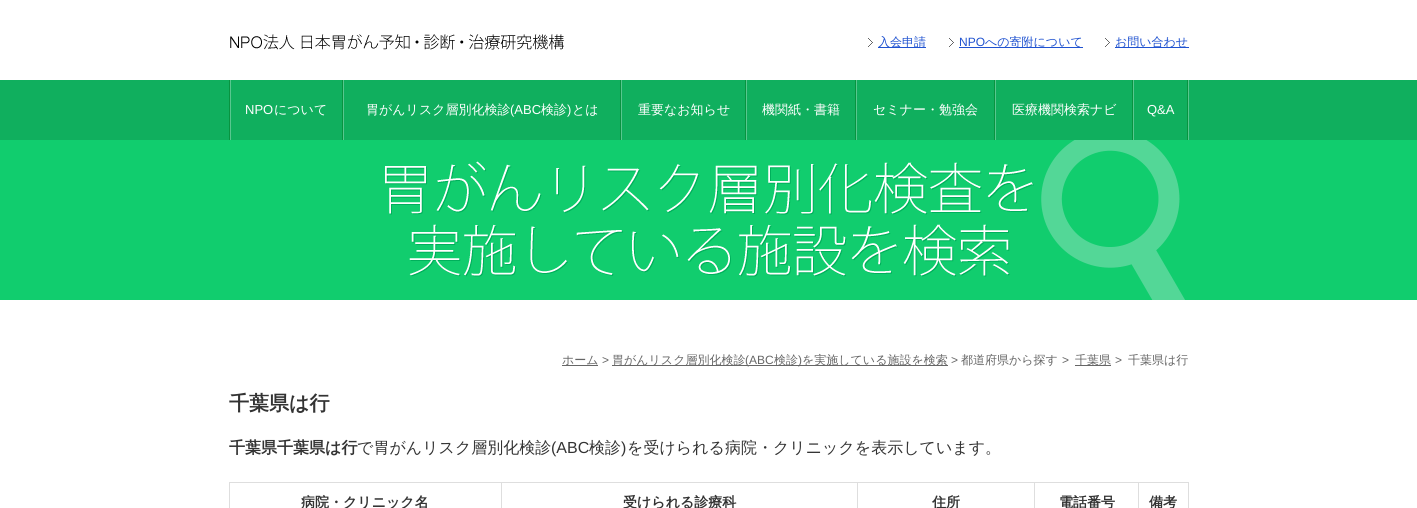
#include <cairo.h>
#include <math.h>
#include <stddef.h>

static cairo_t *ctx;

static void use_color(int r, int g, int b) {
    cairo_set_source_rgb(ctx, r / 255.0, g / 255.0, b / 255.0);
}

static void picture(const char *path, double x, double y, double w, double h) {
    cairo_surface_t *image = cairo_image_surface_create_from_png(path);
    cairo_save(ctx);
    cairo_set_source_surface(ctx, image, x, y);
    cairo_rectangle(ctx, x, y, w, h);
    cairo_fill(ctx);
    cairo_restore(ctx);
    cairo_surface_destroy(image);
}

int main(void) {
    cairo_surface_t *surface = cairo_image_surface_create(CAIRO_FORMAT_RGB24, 1417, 508);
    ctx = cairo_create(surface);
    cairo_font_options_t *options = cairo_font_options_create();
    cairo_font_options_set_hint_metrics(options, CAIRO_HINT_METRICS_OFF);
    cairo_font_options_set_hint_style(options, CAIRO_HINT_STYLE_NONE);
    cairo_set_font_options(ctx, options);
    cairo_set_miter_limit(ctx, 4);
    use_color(255, 255, 255);
    cairo_paint(ctx);
    picture("img1.png", 230, 34, 334, 16);
    picture("img2.png", 868, 38, 5, 9);
    use_color(31, 82, 208);
    cairo_rectangle(ctx, 878, 47, 48, 1);
    cairo_fill(ctx);
    cairo_select_font_face(ctx, "WenQuanYi Zen Hei Medium", CAIRO_FONT_SLANT_NORMAL, CAIRO_FONT_WEIGHT_NORMAL);
    cairo_set_font_size(ctx, 12);
    cairo_move_to(ctx, 878, 46);
    cairo_show_text(ctx, "入会申請");
    picture("img2.png", 949, 38, 5, 9);
    cairo_select_font_face(ctx, "Liberation Sans", CAIRO_FONT_SLANT_NORMAL, CAIRO_FONT_WEIGHT_NORMAL);
    cairo_move_to(ctx, 959, 46);
    cairo_show_text(ctx, "NPO");
    cairo_rectangle(ctx, 959, 47, 124, 1);
    cairo_fill(ctx);
    cairo_select_font_face(ctx, "WenQuanYi Zen Hei Medium", CAIRO_FONT_SLANT_NORMAL, CAIRO_FONT_WEIGHT_NORMAL);
    cairo_move_to(ctx, 985, 46);
    cairo_show_text(ctx, "への寄附について");
    picture("img2.png", 1105, 38, 5, 9);
    cairo_rectangle(ctx, 1115, 47, 74, 1);
    cairo_fill(ctx);
    cairo_move_to(ctx, 1115, 46);
    cairo_show_text(ctx, "お問い合わせ");
    use_color(16, 175, 94);
    cairo_rectangle(ctx, 0, 80, 1417, 60);
    cairo_fill(ctx);
    use_color(88, 199, 143);
    cairo_rectangle(ctx, 1188, 80, 1, 60);
    cairo_fill(ctx);
    use_color(8, 147, 64);
    cairo_rectangle(ctx, 229, 80, 1, 60);
    cairo_fill(ctx);
    cairo_rectangle(ctx, 342, 80, 1, 60);
    cairo_fill(ctx);
    use_color(88, 199, 143);
    cairo_rectangle(ctx, 230, 80, 1, 60);
    cairo_fill(ctx);
    cairo_select_font_face(ctx, "Liberation Sans", CAIRO_FONT_SLANT_NORMAL, CAIRO_FONT_WEIGHT_NORMAL);
    cairo_set_font_size(ctx, 13);
    use_color(255, 255, 255);
    cairo_move_to(ctx, 245, 114);
    cairo_show_text(ctx, "NPO");
    cairo_select_font_face(ctx, "WenQuanYi Zen Hei Medium", CAIRO_FONT_SLANT_NORMAL, CAIRO_FONT_WEIGHT_NORMAL);
    cairo_move_to(ctx, 274, 114);
    cairo_show_text(ctx, "について");
    use_color(8, 147, 64);
    cairo_rectangle(ctx, 620, 80, 1, 60);
    cairo_fill(ctx);
    use_color(88, 199, 143);
    cairo_rectangle(ctx, 343, 80, 1, 60);
    cairo_fill(ctx);
    use_color(255, 255, 255);
    cairo_move_to(ctx, 366, 114);
    cairo_show_text(ctx, "胃がんリスク層別化検診");
    cairo_select_font_face(ctx, "Liberation Sans", CAIRO_FONT_SLANT_NORMAL, CAIRO_FONT_WEIGHT_NORMAL);
    cairo_move_to(ctx, 510, 114);
    cairo_show_text(ctx, "(ABC");
    cairo_select_font_face(ctx, "WenQuanYi Zen Hei Medium", CAIRO_FONT_SLANT_NORMAL, CAIRO_FONT_WEIGHT_NORMAL);
    cairo_move_to(ctx, 541, 114);
    cairo_show_text(ctx, "検診");
    cairo_select_font_face(ctx, "Liberation Sans", CAIRO_FONT_SLANT_NORMAL, CAIRO_FONT_WEIGHT_NORMAL);
    cairo_move_to(ctx, 567, 114);
    cairo_show_text(ctx, ")");
    cairo_select_font_face(ctx, "WenQuanYi Zen Hei Medium", CAIRO_FONT_SLANT_NORMAL, CAIRO_FONT_WEIGHT_NORMAL);
    cairo_move_to(ctx, 572, 114);
    cairo_show_text(ctx, "とは");
    use_color(8, 147, 64);
    cairo_rectangle(ctx, 745, 80, 1, 60);
    cairo_fill(ctx);
    use_color(88, 199, 143);
    cairo_rectangle(ctx, 621, 80, 1, 60);
    cairo_fill(ctx);
    use_color(255, 255, 255);
    cairo_move_to(ctx, 638, 114);
    cairo_show_text(ctx, "重要なお知らせ");
    use_color(8, 147, 64);
    cairo_rectangle(ctx, 855, 80, 1, 60);
    cairo_fill(ctx);
    use_color(88, 199, 143);
    cairo_rectangle(ctx, 746, 80, 1, 60);
    cairo_fill(ctx);
    use_color(255, 255, 255);
    cairo_move_to(ctx, 762, 114);
    cairo_show_text(ctx, "機関紙・書籍");
    use_color(8, 147, 64);
    cairo_rectangle(ctx, 994, 80, 1, 60);
    cairo_fill(ctx);
    use_color(88, 199, 143);
    cairo_rectangle(ctx, 856, 80, 1, 60);
    cairo_fill(ctx);
    use_color(255, 255, 255);
    cairo_move_to(ctx, 873, 114);
    cairo_show_text(ctx, "セミナー・勉強会");
    use_color(8, 147, 64);
    cairo_rectangle(ctx, 1132, 80, 1, 60);
    cairo_fill(ctx);
    use_color(88, 199, 143);
    cairo_rectangle(ctx, 995, 80, 1, 60);
    cairo_fill(ctx);
    use_color(255, 255, 255);
    cairo_move_to(ctx, 1012, 114);
    cairo_show_text(ctx, "医療機関検索ナビ");
    use_color(8, 147, 64);
    cairo_rectangle(ctx, 1187, 80, 1, 60);
    cairo_fill(ctx);
    use_color(88, 199, 143);
    cairo_rectangle(ctx, 1133, 80, 1, 60);
    cairo_fill(ctx);
    cairo_select_font_face(ctx, "Liberation Sans", CAIRO_FONT_SLANT_NORMAL, CAIRO_FONT_WEIGHT_NORMAL);
    use_color(255, 255, 255);
    cairo_move_to(ctx, 1147, 114);
    cairo_show_text(ctx, "Q&A");
    use_color(17, 205, 110);
    cairo_rectangle(ctx, 0, 140, 1417, 160);
    cairo_fill(ctx);
    picture("img3.png", 385, 140, 800, 160);
    use_color(102, 102, 102);
    cairo_rectangle(ctx, 562, 365, 36, 1);
    cairo_fill(ctx);
    cairo_select_font_face(ctx, "WenQuanYi Zen Hei Medium", CAIRO_FONT_SLANT_NORMAL, CAIRO_FONT_WEIGHT_NORMAL);
    cairo_set_font_size(ctx, 12);
    cairo_move_to(ctx, 562, 364);
    cairo_show_text(ctx, "ホーム");
    cairo_select_font_face(ctx, "Liberation Sans", CAIRO_FONT_SLANT_NORMAL, CAIRO_FONT_WEIGHT_NORMAL);
    cairo_move_to(ctx, 602, 364);
    cairo_show_text(ctx, ">");
    cairo_rectangle(ctx, 612, 365, 336, 1);
    cairo_fill(ctx);
    cairo_select_font_face(ctx, "WenQuanYi Zen Hei Medium", CAIRO_FONT_SLANT_NORMAL, CAIRO_FONT_WEIGHT_NORMAL);
    cairo_move_to(ctx, 612, 364);
    cairo_show_text(ctx, "胃がんリスク層別化検診");
    cairo_select_font_face(ctx, "Liberation Sans", CAIRO_FONT_SLANT_NORMAL, CAIRO_FONT_WEIGHT_NORMAL);
    cairo_move_to(ctx, 745, 364);
    cairo_show_text(ctx, "(ABC");
    cairo_select_font_face(ctx, "WenQuanYi Zen Hei Medium", CAIRO_FONT_SLANT_NORMAL, CAIRO_FONT_WEIGHT_NORMAL);
    cairo_move_to(ctx, 774, 364);
    cairo_show_text(ctx, "検診");
    cairo_select_font_face(ctx, "Liberation Sans", CAIRO_FONT_SLANT_NORMAL, CAIRO_FONT_WEIGHT_NORMAL);
    cairo_move_to(ctx, 798, 364);
    cairo_show_text(ctx, ")");
    cairo_select_font_face(ctx, "WenQuanYi Zen Hei Medium", CAIRO_FONT_SLANT_NORMAL, CAIRO_FONT_WEIGHT_NORMAL);
    cairo_move_to(ctx, 802, 364);
    cairo_show_text(ctx, "を実施している施設を検索");
    cairo_select_font_face(ctx, "Liberation Sans", CAIRO_FONT_SLANT_NORMAL, CAIRO_FONT_WEIGHT_NORMAL);
    cairo_move_to(ctx, 951, 364);
    cairo_show_text(ctx, ">");
    cairo_select_font_face(ctx, "WenQuanYi Zen Hei Medium", CAIRO_FONT_SLANT_NORMAL, CAIRO_FONT_WEIGHT_NORMAL);
    cairo_move_to(ctx, 961, 364);
    cairo_show_text(ctx, "都道府県から探す");
    cairo_select_font_face(ctx, "Liberation Sans", CAIRO_FONT_SLANT_NORMAL, CAIRO_FONT_WEIGHT_NORMAL);
    cairo_move_to(ctx, 1062, 364);
    cairo_show_text(ctx, ">");
    cairo_rectangle(ctx, 1075, 365, 36, 1);
    cairo_fill(ctx);
    cairo_select_font_face(ctx, "WenQuanYi Zen Hei Medium", CAIRO_FONT_SLANT_NORMAL, CAIRO_FONT_WEIGHT_NORMAL);
    cairo_move_to(ctx, 1075, 364);
    cairo_show_text(ctx, "千葉県");
    cairo_select_font_face(ctx, "Liberation Sans", CAIRO_FONT_SLANT_NORMAL, CAIRO_FONT_WEIGHT_NORMAL);
    cairo_move_to(ctx, 1115, 364);
    cairo_show_text(ctx, ">");
    cairo_select_font_face(ctx, "WenQuanYi Zen Hei Medium", CAIRO_FONT_SLANT_NORMAL, CAIRO_FONT_WEIGHT_NORMAL);
    cairo_move_to(ctx, 1128, 364);
    cairo_show_text(ctx, "千葉県は行");
    cairo_select_font_face(ctx, "WenQuanYi Zen Hei", CAIRO_FONT_SLANT_NORMAL, CAIRO_FONT_WEIGHT_BOLD);
    cairo_set_font_size(ctx, 20);
    use_color(51, 51, 51);
    cairo_move_to(ctx, 229, 410);
    cairo_show_text(ctx, "千葉県は行");
    cairo_set_font_size(ctx, 16);
    cairo_move_to(ctx, 229, 453);
    cairo_show_text(ctx, "千葉県千葉県は行");
    cairo_select_font_face(ctx, "WenQuanYi Zen Hei Medium", CAIRO_FONT_SLANT_NORMAL, CAIRO_FONT_WEIGHT_NORMAL);
    cairo_move_to(ctx, 357, 453);
    cairo_show_text(ctx, "で胃がんリスク層別化検診");
    cairo_select_font_face(ctx, "Liberation Sans", CAIRO_FONT_SLANT_NORMAL, CAIRO_FONT_WEIGHT_NORMAL);
    cairo_move_to(ctx, 551, 453);
    cairo_show_text(ctx, "(ABC");
    cairo_select_font_face(ctx, "WenQuanYi Zen Hei Medium", CAIRO_FONT_SLANT_NORMAL, CAIRO_FONT_WEIGHT_NORMAL);
    cairo_move_to(ctx, 589, 453);
    cairo_show_text(ctx, "検診");
    cairo_select_font_face(ctx, "Liberation Sans", CAIRO_FONT_SLANT_NORMAL, CAIRO_FONT_WEIGHT_NORMAL);
    cairo_move_to(ctx, 621, 453);
    cairo_show_text(ctx, ")");
    cairo_select_font_face(ctx, "WenQuanYi Zen Hei Medium", CAIRO_FONT_SLANT_NORMAL, CAIRO_FONT_WEIGHT_NORMAL);
    cairo_move_to(ctx, 627, 453);
    cairo_show_text(ctx, "を受けられる病院・クリニックを表示しています。");
    use_color(222, 222, 222);
    cairo_rectangle(ctx, 1138, 482, 51, 1);
    cairo_fill(ctx);
    cairo_rectangle(ctx, 1138, 482, 1, 26);
    cairo_fill(ctx);
    cairo_rectangle(ctx, 1034, 482, 105, 1);
    cairo_fill(ctx);
    cairo_rectangle(ctx, 1034, 482, 1, 26);
    cairo_fill(ctx);
    cairo_rectangle(ctx, 857, 482, 178, 1);
    cairo_fill(ctx);
    cairo_rectangle(ctx, 857, 482, 1, 26);
    cairo_fill(ctx);
    cairo_rectangle(ctx, 501, 482, 357, 1);
    cairo_fill(ctx);
    cairo_rectangle(ctx, 501, 482, 1, 26);
    cairo_fill(ctx);
    cairo_rectangle(ctx, 229, 482, 273, 1);
    cairo_fill(ctx);
    cairo_rectangle(ctx, 229, 482, 1, 26);
    cairo_fill(ctx);
    cairo_select_font_face(ctx, "WenQuanYi Zen Hei", CAIRO_FONT_SLANT_NORMAL, CAIRO_FONT_WEIGHT_BOLD);
    cairo_set_font_size(ctx, 14);
    use_color(51, 51, 51);
    cairo_move_to(ctx, 301, 507);
    cairo_show_text(ctx, "病院・クリニック名");
    cairo_move_to(ctx, 623, 507);
    cairo_show_text(ctx, "受けられる診療科");
    cairo_move_to(ctx, 932, 507);
    cairo_show_text(ctx, "住所");
    cairo_move_to(ctx, 1059, 507);
    cairo_show_text(ctx, "電話番号");
    use_color(222, 222, 222);
    cairo_rectangle(ctx, 1188, 482, 1, 26);
    cairo_fill(ctx);
    use_color(51, 51, 51);
    cairo_move_to(ctx, 1149, 507);
    cairo_show_text(ctx, "備考");
    cairo_surface_write_to_png(surface, "result.png");
    cairo_font_options_destroy(options);
    cairo_destroy(ctx);
    cairo_surface_destroy(surface);
    return 0;
}
